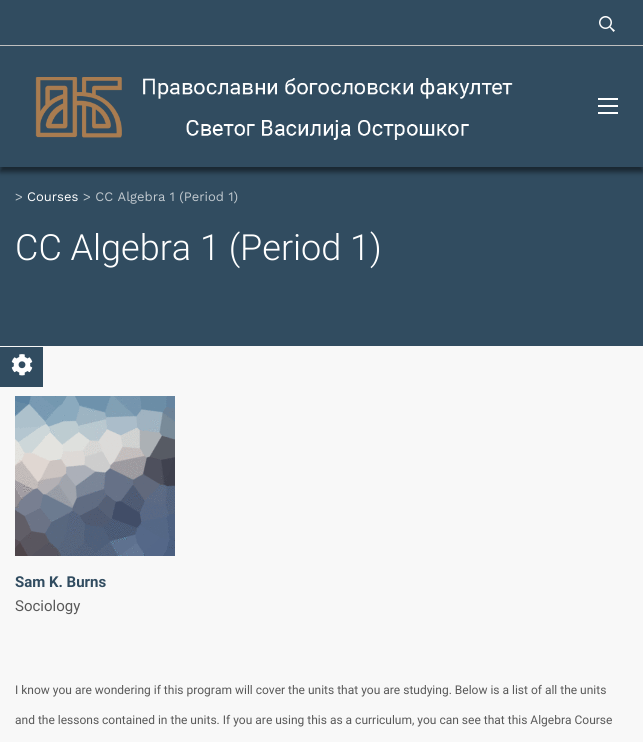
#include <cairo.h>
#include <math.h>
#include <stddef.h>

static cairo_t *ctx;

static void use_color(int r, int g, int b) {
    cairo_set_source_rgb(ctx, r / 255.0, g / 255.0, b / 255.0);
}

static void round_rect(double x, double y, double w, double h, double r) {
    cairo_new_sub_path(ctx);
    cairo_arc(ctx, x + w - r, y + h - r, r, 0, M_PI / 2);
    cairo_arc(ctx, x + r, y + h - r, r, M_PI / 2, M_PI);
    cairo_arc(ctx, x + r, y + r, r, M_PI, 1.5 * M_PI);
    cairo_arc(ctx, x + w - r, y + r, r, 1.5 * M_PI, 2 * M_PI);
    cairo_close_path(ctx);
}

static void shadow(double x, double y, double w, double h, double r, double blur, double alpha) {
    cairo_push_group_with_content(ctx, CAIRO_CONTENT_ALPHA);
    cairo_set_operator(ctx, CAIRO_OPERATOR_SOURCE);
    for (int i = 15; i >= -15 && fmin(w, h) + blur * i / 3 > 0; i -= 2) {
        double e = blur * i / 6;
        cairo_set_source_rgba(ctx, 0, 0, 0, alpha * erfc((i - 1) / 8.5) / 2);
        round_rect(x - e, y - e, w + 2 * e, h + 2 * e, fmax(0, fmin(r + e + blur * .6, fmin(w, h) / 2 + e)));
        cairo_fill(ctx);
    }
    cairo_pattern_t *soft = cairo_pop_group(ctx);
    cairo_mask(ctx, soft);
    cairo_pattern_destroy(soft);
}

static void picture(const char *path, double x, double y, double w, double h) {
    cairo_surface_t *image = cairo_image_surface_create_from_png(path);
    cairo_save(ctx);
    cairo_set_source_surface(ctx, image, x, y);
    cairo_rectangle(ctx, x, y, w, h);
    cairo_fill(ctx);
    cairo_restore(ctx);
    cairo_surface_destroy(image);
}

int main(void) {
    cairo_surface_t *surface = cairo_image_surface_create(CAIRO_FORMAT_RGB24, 643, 742);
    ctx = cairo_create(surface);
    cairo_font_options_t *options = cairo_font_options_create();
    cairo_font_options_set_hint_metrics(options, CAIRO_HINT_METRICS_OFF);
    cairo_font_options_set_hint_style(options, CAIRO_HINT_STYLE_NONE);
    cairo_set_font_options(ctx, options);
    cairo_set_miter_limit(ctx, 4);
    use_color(248, 248, 248);
    cairo_paint(ctx);
    use_color(49, 76, 96);
    cairo_rectangle(ctx, 0, 167, 643, 179);
    cairo_fill(ctx);
    use_color(0, 0, 0);
    shadow(0, 5, 643, 167, 0, 2.5, 0.5);
    use_color(49, 76, 96);
    cairo_rectangle(ctx, 0, 0, 643, 45);
    cairo_fill(ctx);
    use_color(191, 191, 191);
    cairo_rectangle(ctx, 0, 45, 643, 1);
    cairo_fill(ctx);
    picture("img1.png", 599, 16, 16, 16);
    use_color(49, 76, 96);
    cairo_rectangle(ctx, 0, 46, 643, 121);
    cairo_fill(ctx);
    picture("img2.png", 35, 77, 478, 63);
    use_color(255, 255, 255);
    cairo_rectangle(ctx, 598, 105, 20, 2);
    cairo_fill(ctx);
    cairo_rectangle(ctx, 598, 98, 20, 2);
    cairo_fill(ctx);
    cairo_rectangle(ctx, 598, 112, 20, 2);
    cairo_fill(ctx);
    cairo_select_font_face(ctx, "Work Sans", CAIRO_FONT_SLANT_NORMAL, CAIRO_FONT_WEIGHT_NORMAL);
    cairo_set_font_size(ctx, 13);
    use_color(193, 201, 207);
    cairo_move_to(ctx, 15, 201);
    cairo_show_text(ctx, ">");
    use_color(255, 255, 255);
    cairo_move_to(ctx, 27, 201);
    cairo_show_text(ctx, "Courses");
    use_color(193, 201, 207);
    cairo_move_to(ctx, 83, 201);
    cairo_show_text(ctx, "> CC Algebra 1 (Period 1)");
    cairo_select_font_face(ctx, "Roboto Light", CAIRO_FONT_SLANT_NORMAL, CAIRO_FONT_WEIGHT_NORMAL);
    cairo_set_font_size(ctx, 36);
    use_color(255, 255, 255);
    cairo_move_to(ctx, 15, 260);
    cairo_show_text(ctx, "CC Algebra 1 (Period 1)");
    picture("img3.png", 15, 396, 160, 160);
    cairo_select_font_face(ctx, "Roboto", CAIRO_FONT_SLANT_NORMAL, CAIRO_FONT_WEIGHT_BOLD);
    cairo_set_font_size(ctx, 15);
    use_color(49, 76, 96);
    cairo_move_to(ctx, 15, 587);
    cairo_show_text(ctx, "Sam K. Burns");
    cairo_select_font_face(ctx, "Roboto", CAIRO_FONT_SLANT_NORMAL, CAIRO_FONT_WEIGHT_NORMAL);
    use_color(89, 89, 89);
    cairo_move_to(ctx, 15, 611);
    cairo_show_text(ctx, "Sociology");
    cairo_set_font_size(ctx, 12);
    cairo_move_to(ctx, 15, 694);
    cairo_show_text(ctx, "I know you are wondering if this program will cover the units that you are studying. Below is a list of all the units");
    cairo_move_to(ctx, 15, 724);
    cairo_show_text(ctx, "and the lessons contained in the units. If you are using this as a curriculum, you can see that this Algebra Course");
    use_color(49, 76, 96);
    cairo_rectangle(ctx, 0, 347, 43, 40);
    cairo_fill(ctx);
    picture("img4.png", 11, 354, 22, 22);
    cairo_surface_write_to_png(surface, "result.png");
    cairo_font_options_destroy(options);
    cairo_destroy(ctx);
    cairo_surface_destroy(surface);
    return 0;
}
